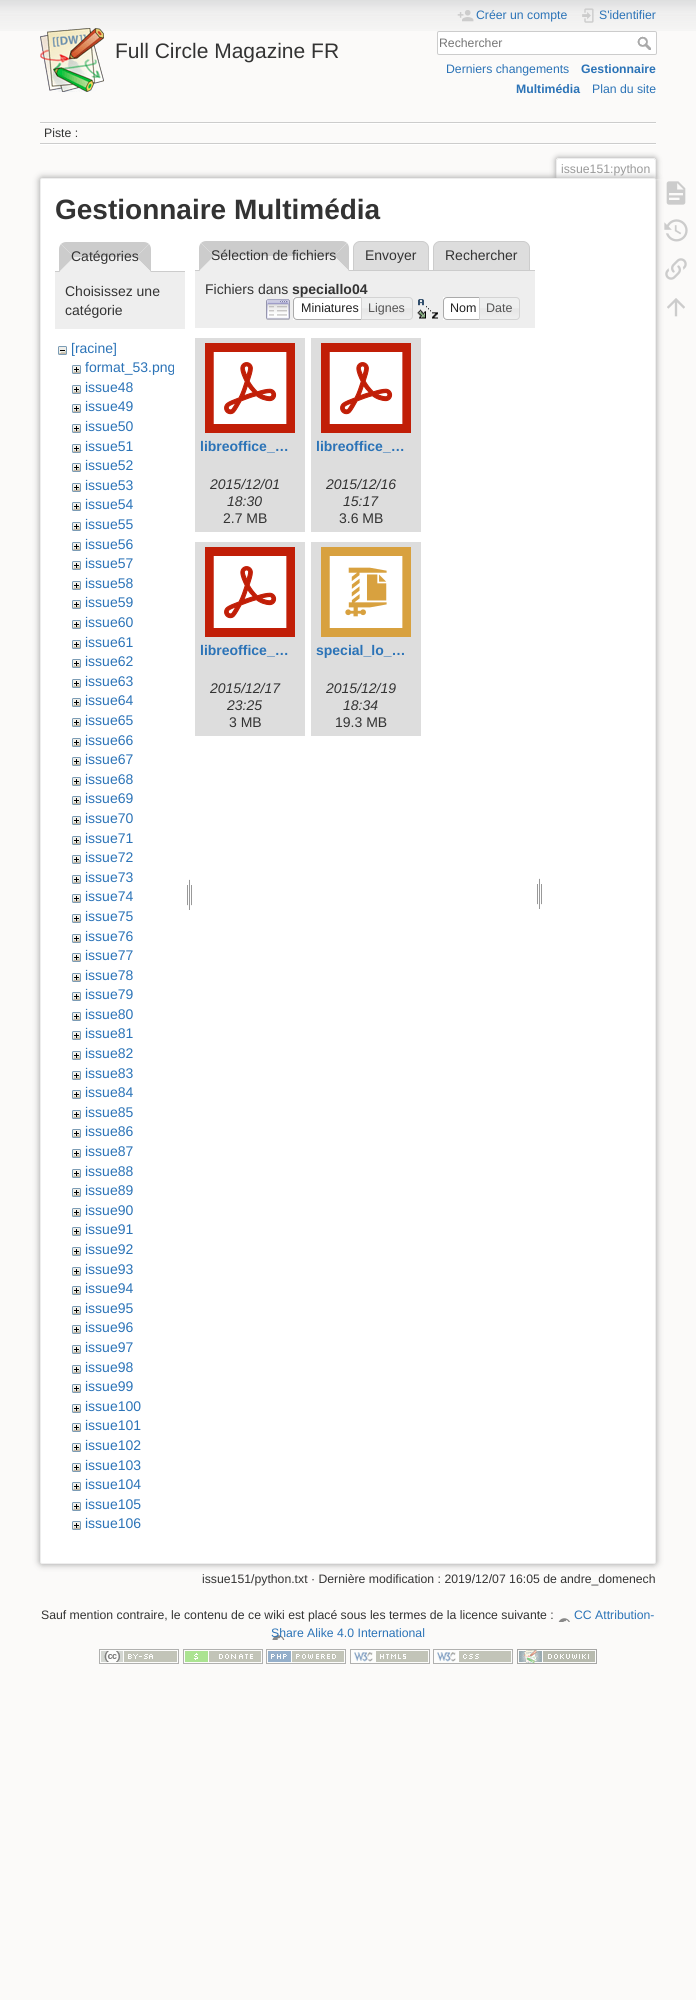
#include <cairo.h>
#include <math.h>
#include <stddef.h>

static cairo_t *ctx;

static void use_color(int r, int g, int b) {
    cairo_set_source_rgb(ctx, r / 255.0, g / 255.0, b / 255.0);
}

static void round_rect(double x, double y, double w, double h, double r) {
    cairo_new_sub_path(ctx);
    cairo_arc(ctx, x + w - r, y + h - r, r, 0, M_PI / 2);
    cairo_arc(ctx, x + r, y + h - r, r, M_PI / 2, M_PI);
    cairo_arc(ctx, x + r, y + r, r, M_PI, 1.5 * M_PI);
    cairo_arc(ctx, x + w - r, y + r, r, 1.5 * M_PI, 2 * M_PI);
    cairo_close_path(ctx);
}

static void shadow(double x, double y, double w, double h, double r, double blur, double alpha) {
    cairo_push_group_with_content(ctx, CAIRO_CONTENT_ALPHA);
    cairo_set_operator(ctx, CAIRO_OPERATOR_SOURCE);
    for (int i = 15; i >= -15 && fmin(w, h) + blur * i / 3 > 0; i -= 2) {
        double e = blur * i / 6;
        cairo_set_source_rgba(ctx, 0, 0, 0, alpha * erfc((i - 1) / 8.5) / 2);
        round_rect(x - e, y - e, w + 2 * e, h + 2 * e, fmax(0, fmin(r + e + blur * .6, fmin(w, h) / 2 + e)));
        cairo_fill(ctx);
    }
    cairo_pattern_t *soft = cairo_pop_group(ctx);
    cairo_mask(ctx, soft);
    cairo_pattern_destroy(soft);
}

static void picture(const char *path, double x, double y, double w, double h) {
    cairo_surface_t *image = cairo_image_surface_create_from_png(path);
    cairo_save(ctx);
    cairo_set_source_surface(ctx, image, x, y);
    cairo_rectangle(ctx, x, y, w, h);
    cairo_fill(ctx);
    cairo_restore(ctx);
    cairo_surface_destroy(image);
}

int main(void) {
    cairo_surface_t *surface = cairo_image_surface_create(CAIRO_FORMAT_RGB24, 696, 2000);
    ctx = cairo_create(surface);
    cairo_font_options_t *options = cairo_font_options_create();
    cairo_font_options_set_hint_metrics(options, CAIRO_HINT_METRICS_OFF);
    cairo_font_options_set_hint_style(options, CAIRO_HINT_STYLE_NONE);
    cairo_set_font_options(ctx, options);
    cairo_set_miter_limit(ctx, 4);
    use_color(251, 250, 249);
    cairo_paint(ctx);
    picture("img1.png", 0, 0, 696, 31);
    picture("img2.png", 40, 28, 64, 64);
    cairo_select_font_face(ctx, "Liberation Sans", CAIRO_FONT_SLANT_NORMAL, CAIRO_FONT_WEIGHT_NORMAL);
    cairo_set_font_size(ctx, 21);
    use_color(51, 51, 51);
    cairo_move_to(ctx, 115, 58);
    cairo_show_text(ctx, "Full Circle Magazine FR");
    picture("img3.png", 457, 10, 17, 12);
    cairo_set_font_size(ctx, 12.25);
    use_color(43, 115, 183);
    cairo_move_to(ctx, 476, 19);
    cairo_show_text(ctx, "Créer un compte");
    picture("img4.png", 582, 8, 12, 15);
    cairo_move_to(ctx, 599, 19);
    cairo_show_text(ctx, "S'identifier");
    use_color(255, 255, 255);
    round_rect(437.5, 31.5, 219, 23, 1.5);
    cairo_fill_preserve(ctx);
    use_color(204, 204, 204);
    cairo_set_line_width(ctx, 1);
    cairo_stroke(ctx);
    use_color(117, 117, 117);
    cairo_move_to(ctx, 439, 47);
    cairo_show_text(ctx, "Rechercher");
    picture("img5.png", 637, 36, 14, 14);
    use_color(43, 115, 183);
    cairo_move_to(ctx, 446, 73);
    cairo_show_text(ctx, "Derniers changements");
    cairo_select_font_face(ctx, "Liberation Sans", CAIRO_FONT_SLANT_NORMAL, CAIRO_FONT_WEIGHT_BOLD);
    cairo_move_to(ctx, 581, 73);
    cairo_show_text(ctx, "Gestionnaire");
    cairo_move_to(ctx, 516, 93);
    cairo_show_text(ctx, "Multimédia");
    cairo_select_font_face(ctx, "Liberation Sans", CAIRO_FONT_SLANT_NORMAL, CAIRO_FONT_WEIGHT_NORMAL);
    cairo_move_to(ctx, 592, 93);
    cairo_show_text(ctx, "Plan du site");
    use_color(204, 204, 204);
    cairo_rectangle(ctx, 40, 122, 616, 1);
    cairo_fill(ctx);
    use_color(255, 255, 255);
    cairo_rectangle(ctx, 40, 144, 616, 1);
    cairo_fill(ctx);
    cairo_rectangle(ctx, 40, 123, 616, 1);
    cairo_fill(ctx);
    use_color(204, 204, 204);
    cairo_rectangle(ctx, 40, 143, 616, 1);
    cairo_fill(ctx);
    use_color(51, 51, 51);
    cairo_move_to(ctx, 44, 137);
    cairo_show_text(ctx, "Piste :");
    cairo_save(ctx);
    cairo_rectangle(ctx, 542, 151, 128, 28);
    cairo_clip(ctx);
    use_color(153, 153, 153);
    shadow(556, 158, 100, 21, 2, 3, 1);
    cairo_restore(ctx);
    use_color(255, 255, 255);
    cairo_new_path(ctx);
    cairo_move_to(ctx, 558, 159);
    cairo_line_to(ctx, 654, 159);
    cairo_curve_to(ctx, 654.5, 159, 655, 159.5, 655, 160);
    cairo_line_to(ctx, 655, 179);
    cairo_line_to(ctx, 557, 179);
    cairo_line_to(ctx, 557, 160);
    cairo_curve_to(ctx, 557, 159.5, 557.5, 159, 558, 159);
    cairo_close_path(ctx);
    cairo_fill(ctx);
    use_color(238, 238, 238);
    cairo_rectangle(ctx, 557, 158, 98, 1);
    cairo_fill(ctx);
    cairo_rectangle(ctx, 655, 159, 1, 20);
    cairo_fill(ctx);
    cairo_rectangle(ctx, 556, 159, 1, 20);
    cairo_fill(ctx);
    use_color(153, 153, 153);
    cairo_move_to(ctx, 561, 173);
    cairo_show_text(ctx, "issue151:python");
    use_color(153, 153, 153);
    shadow(40, 178, 616, 1386, 2, 3.5, 1);
    use_color(255, 255, 255);
    round_rect(40.5, 178.5, 615, 1385, 1.5);
    cairo_fill_preserve(ctx);
    use_color(238, 238, 238);
    cairo_stroke(ctx);
    cairo_select_font_face(ctx, "Liberation Sans", CAIRO_FONT_SLANT_NORMAL, CAIRO_FONT_WEIGHT_BOLD);
    cairo_set_font_size(ctx, 28);
    use_color(51, 51, 51);
    cairo_move_to(ctx, 55, 219);
    cairo_show_text(ctx, "Gestionnaire Multimédia");
    use_color(204, 204, 204);
    cairo_new_path(ctx);
    cairo_move_to(ctx, 66, 242);
    cairo_line_to(ctx, 144, 242);
    cairo_curve_to(ctx, 146, 242, 148, 243, 149, 244);
    cairo_line_to(ctx, 136, 257);
    cairo_line_to(ctx, 74, 257);
    cairo_line_to(ctx, 61, 244);
    cairo_curve_to(ctx, 62, 243, 64, 242, 66, 242);
    cairo_close_path(ctx);
    cairo_fill(ctx);
    cairo_rectangle(ctx, 55, 271, 130, 1);
    cairo_fill(ctx);
    cairo_new_path(ctx);
    cairo_move_to(ctx, 149, 244);
    cairo_line_to(ctx, 136, 257);
    cairo_line_to(ctx, 151, 272);
    cairo_line_to(ctx, 151, 249);
    cairo_curve_to(ctx, 151, 247, 150, 245, 149, 244);
    cairo_close_path(ctx);
    cairo_fill(ctx);
    use_color(238, 238, 238);
    cairo_new_path(ctx);
    cairo_move_to(ctx, 151, 272);
    cairo_line_to(ctx, 136, 257);
    cairo_line_to(ctx, 74, 257);
    cairo_line_to(ctx, 59, 272);
    cairo_close_path(ctx);
    cairo_fill(ctx);
    use_color(204, 204, 204);
    cairo_new_path(ctx);
    cairo_move_to(ctx, 59, 272);
    cairo_line_to(ctx, 59, 249);
    cairo_curve_to(ctx, 59, 247, 60, 245, 61, 244);
    cairo_line_to(ctx, 74, 257);
    cairo_close_path(ctx);
    cairo_fill(ctx);
    cairo_select_font_face(ctx, "Liberation Sans", CAIRO_FONT_SLANT_NORMAL, CAIRO_FONT_WEIGHT_NORMAL);
    cairo_set_font_size(ctx, 14);
    use_color(51, 51, 51);
    cairo_move_to(ctx, 71, 261);
    cairo_show_text(ctx, "Catégories");
    use_color(238, 238, 238);
    cairo_rectangle(ctx, 55, 272, 130, 57);
    cairo_fill(ctx);
    use_color(51, 51, 51);
    cairo_move_to(ctx, 65, 296);
    cairo_show_text(ctx, "Choisissez une");
    cairo_move_to(ctx, 65, 315);
    cairo_show_text(ctx, "catégorie");
    picture("img6.png", 58, 346, 9, 9);
    use_color(43, 115, 183);
    cairo_move_to(ctx, 71, 353);
    cairo_show_text(ctx, "[racine]");
    picture("img7.png", 72, 365, 9, 9);
    cairo_move_to(ctx, 85, 372);
    cairo_show_text(ctx, "format_53.png");
    picture("img7.png", 72, 385, 9, 9);
    cairo_move_to(ctx, 85, 392);
    cairo_show_text(ctx, "issue48");
    picture("img7.png", 72, 404, 9, 9);
    cairo_move_to(ctx, 85, 411);
    cairo_show_text(ctx, "issue49");
    picture("img7.png", 72, 424, 9, 9);
    cairo_move_to(ctx, 85, 431);
    cairo_show_text(ctx, "issue50");
    picture("img7.png", 72, 444, 9, 9);
    cairo_move_to(ctx, 85, 451);
    cairo_show_text(ctx, "issue51");
    picture("img7.png", 72, 463, 9, 9);
    cairo_move_to(ctx, 85, 470);
    cairo_show_text(ctx, "issue52");
    picture("img7.png", 72, 483, 9, 9);
    cairo_move_to(ctx, 85, 490);
    cairo_show_text(ctx, "issue53");
    picture("img7.png", 72, 502, 9, 9);
    cairo_move_to(ctx, 85, 509);
    cairo_show_text(ctx, "issue54");
    picture("img7.png", 72, 522, 9, 9);
    cairo_move_to(ctx, 85, 529);
    cairo_show_text(ctx, "issue55");
    picture("img7.png", 72, 542, 9, 9);
    cairo_move_to(ctx, 85, 549);
    cairo_show_text(ctx, "issue56");
    picture("img7.png", 72, 561, 9, 9);
    cairo_move_to(ctx, 85, 568);
    cairo_show_text(ctx, "issue57");
    picture("img7.png", 72, 581, 9, 9);
    cairo_move_to(ctx, 85, 588);
    cairo_show_text(ctx, "issue58");
    picture("img7.png", 72, 600, 9, 9);
    cairo_move_to(ctx, 85, 607);
    cairo_show_text(ctx, "issue59");
    picture("img7.png", 72, 620, 9, 9);
    cairo_move_to(ctx, 85, 627);
    cairo_show_text(ctx, "issue60");
    picture("img7.png", 72, 640, 9, 9);
    cairo_move_to(ctx, 85, 647);
    cairo_show_text(ctx, "issue61");
    picture("img7.png", 72, 659, 9, 9);
    cairo_move_to(ctx, 85, 666);
    cairo_show_text(ctx, "issue62");
    picture("img7.png", 72, 679, 9, 9);
    cairo_move_to(ctx, 85, 686);
    cairo_show_text(ctx, "issue63");
    picture("img7.png", 72, 698, 9, 9);
    cairo_move_to(ctx, 85, 705);
    cairo_show_text(ctx, "issue64");
    picture("img7.png", 72, 718, 9, 9);
    cairo_move_to(ctx, 85, 725);
    cairo_show_text(ctx, "issue65");
    picture("img7.png", 72, 738, 9, 9);
    cairo_move_to(ctx, 85, 745);
    cairo_show_text(ctx, "issue66");
    picture("img7.png", 72, 757, 9, 9);
    cairo_move_to(ctx, 85, 764);
    cairo_show_text(ctx, "issue67");
    picture("img7.png", 72, 777, 9, 9);
    cairo_move_to(ctx, 85, 784);
    cairo_show_text(ctx, "issue68");
    picture("img7.png", 72, 796, 9, 9);
    cairo_move_to(ctx, 85, 803);
    cairo_show_text(ctx, "issue69");
    picture("img7.png", 72, 816, 9, 9);
    cairo_move_to(ctx, 85, 823);
    cairo_show_text(ctx, "issue70");
    picture("img7.png", 72, 836, 9, 9);
    cairo_move_to(ctx, 85, 843);
    cairo_show_text(ctx, "issue71");
    picture("img7.png", 72, 855, 9, 9);
    cairo_move_to(ctx, 85, 862);
    cairo_show_text(ctx, "issue72");
    picture("img7.png", 72, 875, 9, 9);
    cairo_move_to(ctx, 85, 882);
    cairo_show_text(ctx, "issue73");
    picture("img7.png", 72, 894, 9, 9);
    cairo_move_to(ctx, 85, 901);
    cairo_show_text(ctx, "issue74");
    picture("img7.png", 72, 914, 9, 9);
    cairo_move_to(ctx, 85, 921);
    cairo_show_text(ctx, "issue75");
    picture("img7.png", 72, 934, 9, 9);
    cairo_move_to(ctx, 85, 941);
    cairo_show_text(ctx, "issue76");
    picture("img7.png", 72, 953, 9, 9);
    cairo_move_to(ctx, 85, 960);
    cairo_show_text(ctx, "issue77");
    picture("img7.png", 72, 973, 9, 9);
    cairo_move_to(ctx, 85, 980);
    cairo_show_text(ctx, "issue78");
    picture("img7.png", 72, 992, 9, 9);
    cairo_move_to(ctx, 85, 999);
    cairo_show_text(ctx, "issue79");
    picture("img7.png", 72, 1012, 9, 9);
    cairo_move_to(ctx, 85, 1019);
    cairo_show_text(ctx, "issue80");
    picture("img7.png", 72, 1031, 9, 9);
    cairo_move_to(ctx, 85, 1038);
    cairo_show_text(ctx, "issue81");
    picture("img7.png", 72, 1051, 9, 9);
    cairo_move_to(ctx, 85, 1058);
    cairo_show_text(ctx, "issue82");
    picture("img7.png", 72, 1071, 9, 9);
    cairo_move_to(ctx, 85, 1078);
    cairo_show_text(ctx, "issue83");
    picture("img7.png", 72, 1090, 9, 9);
    cairo_move_to(ctx, 85, 1097);
    cairo_show_text(ctx, "issue84");
    picture("img7.png", 72, 1110, 9, 9);
    cairo_move_to(ctx, 85, 1117);
    cairo_show_text(ctx, "issue85");
    picture("img7.png", 72, 1129, 9, 9);
    cairo_move_to(ctx, 85, 1136);
    cairo_show_text(ctx, "issue86");
    picture("img7.png", 72, 1149, 9, 9);
    cairo_move_to(ctx, 85, 1156);
    cairo_show_text(ctx, "issue87");
    picture("img7.png", 72, 1169, 9, 9);
    cairo_move_to(ctx, 85, 1176);
    cairo_show_text(ctx, "issue88");
    picture("img7.png", 72, 1188, 9, 9);
    cairo_move_to(ctx, 85, 1195);
    cairo_show_text(ctx, "issue89");
    picture("img7.png", 72, 1208, 9, 9);
    cairo_move_to(ctx, 85, 1215);
    cairo_show_text(ctx, "issue90");
    picture("img7.png", 72, 1227, 9, 9);
    cairo_move_to(ctx, 85, 1234);
    cairo_show_text(ctx, "issue91");
    picture("img7.png", 72, 1247, 9, 9);
    cairo_move_to(ctx, 85, 1254);
    cairo_show_text(ctx, "issue92");
    picture("img7.png", 72, 1267, 9, 9);
    cairo_move_to(ctx, 85, 1274);
    cairo_show_text(ctx, "issue93");
    picture("img7.png", 72, 1286, 9, 9);
    cairo_move_to(ctx, 85, 1293);
    cairo_show_text(ctx, "issue94");
    picture("img7.png", 72, 1306, 9, 9);
    cairo_move_to(ctx, 85, 1313);
    cairo_show_text(ctx, "issue95");
    picture("img7.png", 72, 1325, 9, 9);
    cairo_move_to(ctx, 85, 1332);
    cairo_show_text(ctx, "issue96");
    picture("img7.png", 72, 1345, 9, 9);
    cairo_move_to(ctx, 85, 1352);
    cairo_show_text(ctx, "issue97");
    picture("img7.png", 72, 1365, 9, 9);
    cairo_move_to(ctx, 85, 1372);
    cairo_show_text(ctx, "issue98");
    picture("img7.png", 72, 1384, 9, 9);
    cairo_move_to(ctx, 85, 1391);
    cairo_show_text(ctx, "issue99");
    picture("img7.png", 72, 1404, 9, 9);
    cairo_move_to(ctx, 85, 1411);
    cairo_show_text(ctx, "issue100");
    picture("img7.png", 72, 1423, 9, 9);
    cairo_move_to(ctx, 85, 1430);
    cairo_show_text(ctx, "issue101");
    picture("img7.png", 72, 1443, 9, 9);
    cairo_move_to(ctx, 85, 1450);
    cairo_show_text(ctx, "issue102");
    picture("img7.png", 72, 1463, 9, 9);
    cairo_move_to(ctx, 85, 1470);
    cairo_show_text(ctx, "issue103");
    picture("img7.png", 72, 1482, 9, 9);
    cairo_move_to(ctx, 85, 1489);
    cairo_show_text(ctx, "issue104");
    picture("img7.png", 72, 1502, 9, 9);
    cairo_move_to(ctx, 85, 1509);
    cairo_show_text(ctx, "issue105");
    picture("img7.png", 72, 1521, 9, 9);
    cairo_move_to(ctx, 85, 1528);
    cairo_show_text(ctx, "issue106");
    picture("img8.png", 187, 879, 5, 31);
    use_color(204, 204, 204);
    cairo_new_path(ctx);
    cairo_move_to(ctx, 206, 241);
    cairo_line_to(ctx, 342, 241);
    cairo_curve_to(ctx, 344, 241, 346, 242, 347, 243);
    cairo_line_to(ctx, 334, 256);
    cairo_line_to(ctx, 214, 256);
    cairo_line_to(ctx, 201, 243);
    cairo_curve_to(ctx, 202, 242, 204, 241, 206, 241);
    cairo_close_path(ctx);
    cairo_fill(ctx);
    use_color(221, 221, 221);
    cairo_new_path(ctx);
    cairo_move_to(ctx, 360, 241.5);
    cairo_line_to(ctx, 422, 241.5);
    cairo_curve_to(ctx, 425.5, 241.5, 428.5, 244.5, 428.5, 248);
    cairo_line_to(ctx, 428.5, 270.5);
    cairo_line_to(ctx, 353.5, 270.5);
    cairo_line_to(ctx, 353.5, 248);
    cairo_curve_to(ctx, 353.5, 244.5, 356.5, 241.5, 360, 241.5);
    cairo_close_path(ctx);
    cairo_fill_preserve(ctx);
    use_color(204, 204, 204);
    cairo_stroke(ctx);
    use_color(221, 221, 221);
    cairo_new_path(ctx);
    cairo_move_to(ctx, 440, 241.5);
    cairo_line_to(ctx, 523, 241.5);
    cairo_curve_to(ctx, 526.5, 241.5, 529.5, 244.5, 529.5, 248);
    cairo_line_to(ctx, 529.5, 270.5);
    cairo_line_to(ctx, 433.5, 270.5);
    cairo_line_to(ctx, 433.5, 248);
    cairo_curve_to(ctx, 433.5, 244.5, 436.5, 241.5, 440, 241.5);
    cairo_close_path(ctx);
    cairo_fill_preserve(ctx);
    use_color(204, 204, 204);
    cairo_stroke(ctx);
    cairo_rectangle(ctx, 195, 270, 340, 1);
    cairo_fill(ctx);
    cairo_new_path(ctx);
    cairo_move_to(ctx, 347, 243);
    cairo_line_to(ctx, 334, 256);
    cairo_line_to(ctx, 349, 271);
    cairo_line_to(ctx, 349, 248);
    cairo_curve_to(ctx, 349, 246, 348, 244, 347, 243);
    cairo_close_path(ctx);
    cairo_fill(ctx);
    use_color(238, 238, 238);
    cairo_new_path(ctx);
    cairo_move_to(ctx, 349, 271);
    cairo_line_to(ctx, 334, 256);
    cairo_line_to(ctx, 214, 256);
    cairo_line_to(ctx, 199, 271);
    cairo_close_path(ctx);
    cairo_fill(ctx);
    use_color(204, 204, 204);
    cairo_new_path(ctx);
    cairo_move_to(ctx, 199, 271);
    cairo_line_to(ctx, 199, 248);
    cairo_curve_to(ctx, 199, 246, 200, 244, 201, 243);
    cairo_line_to(ctx, 214, 256);
    cairo_close_path(ctx);
    cairo_fill(ctx);
    use_color(51, 51, 51);
    cairo_move_to(ctx, 211, 260);
    cairo_show_text(ctx, "Sélection de fichiers");
    cairo_move_to(ctx, 365, 260);
    cairo_show_text(ctx, "Envoyer");
    cairo_move_to(ctx, 445, 260);
    cairo_show_text(ctx, "Rechercher");
    use_color(238, 238, 238);
    cairo_rectangle(ctx, 195, 271, 340, 57);
    cairo_fill(ctx);
    use_color(51, 51, 51);
    cairo_move_to(ctx, 205, 294);
    cairo_show_text(ctx, "Fichiers dans");
    cairo_select_font_face(ctx, "Liberation Sans", CAIRO_FONT_SLANT_NORMAL, CAIRO_FONT_WEIGHT_BOLD);
    cairo_move_to(ctx, 292, 294);
    cairo_show_text(ctx, "speciallo04");
    picture("img9.png", 266, 299, 24, 21);
    use_color(255, 255, 255);
    cairo_rectangle(ctx, 293, 297, 68, 23);
    cairo_fill(ctx);
    cairo_new_path(ctx);
    cairo_move_to(ctx, 297, 297.5);
    cairo_line_to(ctx, 365.5, 297.5);
    cairo_line_to(ctx, 365.5, 319.5);
    cairo_line_to(ctx, 297, 319.5);
    cairo_curve_to(ctx, 295, 319.5, 293.5, 318, 293.5, 316);
    cairo_line_to(ctx, 293.5, 301);
    cairo_curve_to(ctx, 293.5, 299, 295, 297.5, 297, 297.5);
    cairo_close_path(ctx);
    use_color(170, 170, 170);
    cairo_stroke(ctx);
    cairo_select_font_face(ctx, "Liberation Sans", CAIRO_FONT_SLANT_NORMAL, CAIRO_FONT_WEIGHT_NORMAL);
    cairo_set_font_size(ctx, 12.5);
    use_color(33, 33, 33);
    cairo_move_to(ctx, 301, 312);
    cairo_show_text(ctx, "Miniatures");
    picture("img10.png", 362, 297, 51, 23);
    cairo_new_path(ctx);
    cairo_move_to(ctx, 361.5, 297.5);
    cairo_line_to(ctx, 409, 297.5);
    cairo_curve_to(ctx, 411, 297.5, 412.5, 299, 412.5, 301);
    cairo_line_to(ctx, 412.5, 316);
    cairo_curve_to(ctx, 412.5, 318, 411, 319.5, 409, 319.5);
    cairo_line_to(ctx, 361.5, 319.5);
    cairo_close_path(ctx);
    use_color(211, 211, 211);
    cairo_stroke(ctx);
    use_color(85, 85, 85);
    cairo_move_to(ctx, 368, 312);
    cairo_show_text(ctx, "Lignes");
    picture("img11.png", 417, 299, 21, 20);
    use_color(255, 255, 255);
    cairo_rectangle(ctx, 443, 297, 36, 23);
    cairo_fill(ctx);
    cairo_new_path(ctx);
    cairo_move_to(ctx, 447, 297.5);
    cairo_line_to(ctx, 483.5, 297.5);
    cairo_line_to(ctx, 483.5, 319.5);
    cairo_line_to(ctx, 447, 319.5);
    cairo_curve_to(ctx, 445, 319.5, 443.5, 318, 443.5, 316);
    cairo_line_to(ctx, 443.5, 301);
    cairo_curve_to(ctx, 443.5, 299, 445, 297.5, 447, 297.5);
    cairo_close_path(ctx);
    use_color(170, 170, 170);
    cairo_stroke(ctx);
    use_color(33, 33, 33);
    cairo_move_to(ctx, 450, 312);
    cairo_show_text(ctx, "Nom");
    picture("img12.png", 480, 297, 40, 23);
    cairo_new_path(ctx);
    cairo_move_to(ctx, 479.5, 297.5);
    cairo_line_to(ctx, 516, 297.5);
    cairo_curve_to(ctx, 518, 297.5, 519.5, 299, 519.5, 301);
    cairo_line_to(ctx, 519.5, 316);
    cairo_curve_to(ctx, 519.5, 318, 518, 319.5, 516, 319.5);
    cairo_line_to(ctx, 479.5, 319.5);
    cairo_close_path(ctx);
    use_color(211, 211, 211);
    cairo_stroke(ctx);
    use_color(85, 85, 85);
    cairo_move_to(ctx, 486, 312);
    cairo_show_text(ctx, "Date");
    use_color(221, 221, 221);
    cairo_rectangle(ctx, 195, 338, 110, 194);
    cairo_fill(ctx);
    picture("img13.png", 205, 343, 90, 90);
    cairo_select_font_face(ctx, "Liberation Sans", CAIRO_FONT_SLANT_NORMAL, CAIRO_FONT_WEIGHT_BOLD);
    cairo_set_font_size(ctx, 14);
    use_color(43, 115, 183);
    cairo_move_to(ctx, 200, 451);
    cairo_show_text(ctx, "libreoffice_…");
    cairo_select_font_face(ctx, "Liberation Sans", CAIRO_FONT_SLANT_ITALIC, CAIRO_FONT_WEIGHT_NORMAL);
    use_color(51, 51, 51);
    cairo_move_to(ctx, 210, 489);
    cairo_show_text(ctx, "2015/12/01");
    cairo_move_to(ctx, 227, 506);
    cairo_show_text(ctx, "18:30");
    cairo_select_font_face(ctx, "Liberation Sans", CAIRO_FONT_SLANT_NORMAL, CAIRO_FONT_WEIGHT_NORMAL);
    cairo_move_to(ctx, 223, 523);
    cairo_show_text(ctx, "2.7 MB");
    use_color(221, 221, 221);
    cairo_rectangle(ctx, 311, 338, 110, 194);
    cairo_fill(ctx);
    picture("img13.png", 321, 343, 90, 90);
    cairo_select_font_face(ctx, "Liberation Sans", CAIRO_FONT_SLANT_NORMAL, CAIRO_FONT_WEIGHT_BOLD);
    use_color(43, 115, 183);
    cairo_move_to(ctx, 316, 451);
    cairo_show_text(ctx, "libreoffice_…");
    cairo_select_font_face(ctx, "Liberation Sans", CAIRO_FONT_SLANT_ITALIC, CAIRO_FONT_WEIGHT_NORMAL);
    use_color(51, 51, 51);
    cairo_move_to(ctx, 326, 489);
    cairo_show_text(ctx, "2015/12/16");
    cairo_move_to(ctx, 343, 506);
    cairo_show_text(ctx, "15:17");
    cairo_select_font_face(ctx, "Liberation Sans", CAIRO_FONT_SLANT_NORMAL, CAIRO_FONT_WEIGHT_NORMAL);
    cairo_move_to(ctx, 339, 523);
    cairo_show_text(ctx, "3.6 MB");
    use_color(221, 221, 221);
    cairo_rectangle(ctx, 195, 542, 110, 194);
    cairo_fill(ctx);
    picture("img13.png", 205, 547, 90, 90);
    cairo_select_font_face(ctx, "Liberation Sans", CAIRO_FONT_SLANT_NORMAL, CAIRO_FONT_WEIGHT_BOLD);
    use_color(43, 115, 183);
    cairo_move_to(ctx, 200, 655);
    cairo_show_text(ctx, "libreoffice_…");
    cairo_select_font_face(ctx, "Liberation Sans", CAIRO_FONT_SLANT_ITALIC, CAIRO_FONT_WEIGHT_NORMAL);
    use_color(51, 51, 51);
    cairo_move_to(ctx, 210, 693);
    cairo_show_text(ctx, "2015/12/17");
    cairo_move_to(ctx, 227, 710);
    cairo_show_text(ctx, "23:25");
    cairo_select_font_face(ctx, "Liberation Sans", CAIRO_FONT_SLANT_NORMAL, CAIRO_FONT_WEIGHT_NORMAL);
    cairo_move_to(ctx, 229, 727);
    cairo_show_text(ctx, "3 MB");
    use_color(221, 221, 221);
    cairo_rectangle(ctx, 311, 542, 110, 194);
    cairo_fill(ctx);
    picture("img14.png", 321, 547, 90, 90);
    cairo_select_font_face(ctx, "Liberation Sans", CAIRO_FONT_SLANT_NORMAL, CAIRO_FONT_WEIGHT_BOLD);
    use_color(43, 115, 183);
    cairo_move_to(ctx, 316, 655);
    cairo_show_text(ctx, "special_lo_…");
    cairo_select_font_face(ctx, "Liberation Sans", CAIRO_FONT_SLANT_ITALIC, CAIRO_FONT_WEIGHT_NORMAL);
    use_color(51, 51, 51);
    cairo_move_to(ctx, 326, 693);
    cairo_show_text(ctx, "2015/12/19");
    cairo_move_to(ctx, 343, 710);
    cairo_show_text(ctx, "18:34");
    cairo_select_font_face(ctx, "Liberation Sans", CAIRO_FONT_SLANT_NORMAL, CAIRO_FONT_WEIGHT_NORMAL);
    cairo_move_to(ctx, 335, 727);
    cairo_show_text(ctx, "19.3 MB");
    picture("img8.png", 537, 878, 5, 31);
    cairo_set_font_size(ctx, 12.25);
    cairo_move_to(ctx, 202, 1583);
    cairo_show_text(ctx, "issue151/python.txt · Dernière modification : 2019/12/07 16:05 de andre_domenech");
    picture("img15.png", 666, 181, 20, 24);
    picture("img16.png", 664, 219, 24, 23);
    picture("img17.png", 665, 258, 22, 22);
    picture("img18.png", 667, 298, 18, 19);
    cairo_move_to(ctx, 41, 1619);
    cairo_show_text(ctx, "Sauf mention contraire, le contenu de ce wiki est placé sous les termes de la licence suivante :");
    use_color(43, 115, 183);
    cairo_move_to(ctx, 574, 1619);
    cairo_show_text(ctx, "CC Attribution-");
    picture("img19.png", 272, 1618, 298, 22);
    cairo_move_to(ctx, 271, 1637);
    cairo_show_text(ctx, "Share Alike 4.0 International");
    picture("img20.png", 99, 1649, 80, 15);
    picture("img21.png", 183, 1649, 80, 15);
    picture("img22.png", 266, 1649, 80, 15);
    picture("img23.png", 350, 1649, 80, 15);
    picture("img24.png", 433, 1649, 80, 15);
    picture("img25.png", 517, 1649, 80, 15);
    cairo_surface_write_to_png(surface, "result.png");
    cairo_font_options_destroy(options);
    cairo_destroy(ctx);
    cairo_surface_destroy(surface);
    return 0;
}
